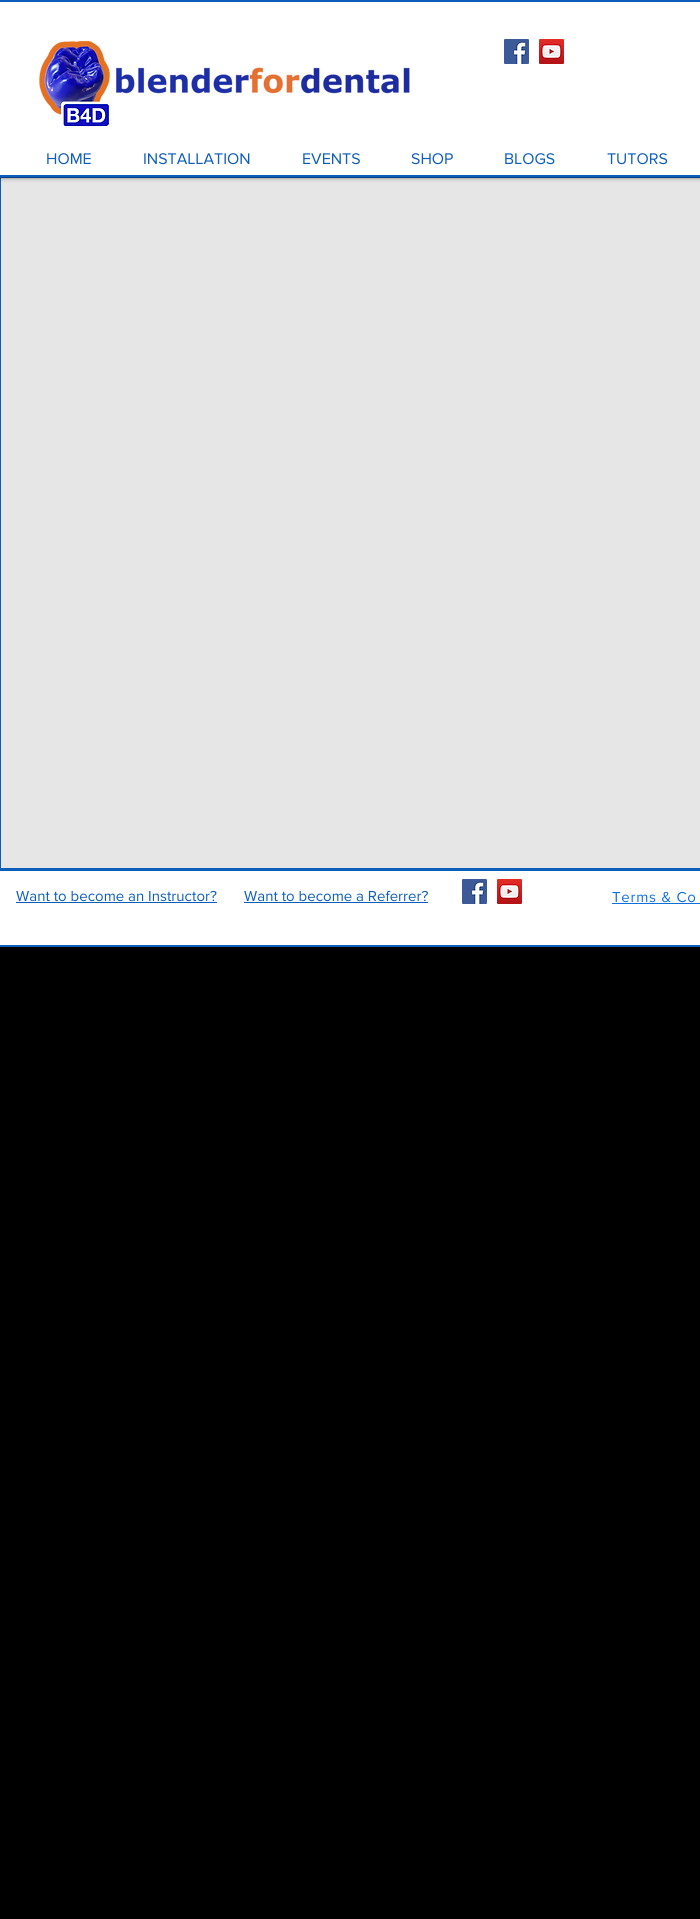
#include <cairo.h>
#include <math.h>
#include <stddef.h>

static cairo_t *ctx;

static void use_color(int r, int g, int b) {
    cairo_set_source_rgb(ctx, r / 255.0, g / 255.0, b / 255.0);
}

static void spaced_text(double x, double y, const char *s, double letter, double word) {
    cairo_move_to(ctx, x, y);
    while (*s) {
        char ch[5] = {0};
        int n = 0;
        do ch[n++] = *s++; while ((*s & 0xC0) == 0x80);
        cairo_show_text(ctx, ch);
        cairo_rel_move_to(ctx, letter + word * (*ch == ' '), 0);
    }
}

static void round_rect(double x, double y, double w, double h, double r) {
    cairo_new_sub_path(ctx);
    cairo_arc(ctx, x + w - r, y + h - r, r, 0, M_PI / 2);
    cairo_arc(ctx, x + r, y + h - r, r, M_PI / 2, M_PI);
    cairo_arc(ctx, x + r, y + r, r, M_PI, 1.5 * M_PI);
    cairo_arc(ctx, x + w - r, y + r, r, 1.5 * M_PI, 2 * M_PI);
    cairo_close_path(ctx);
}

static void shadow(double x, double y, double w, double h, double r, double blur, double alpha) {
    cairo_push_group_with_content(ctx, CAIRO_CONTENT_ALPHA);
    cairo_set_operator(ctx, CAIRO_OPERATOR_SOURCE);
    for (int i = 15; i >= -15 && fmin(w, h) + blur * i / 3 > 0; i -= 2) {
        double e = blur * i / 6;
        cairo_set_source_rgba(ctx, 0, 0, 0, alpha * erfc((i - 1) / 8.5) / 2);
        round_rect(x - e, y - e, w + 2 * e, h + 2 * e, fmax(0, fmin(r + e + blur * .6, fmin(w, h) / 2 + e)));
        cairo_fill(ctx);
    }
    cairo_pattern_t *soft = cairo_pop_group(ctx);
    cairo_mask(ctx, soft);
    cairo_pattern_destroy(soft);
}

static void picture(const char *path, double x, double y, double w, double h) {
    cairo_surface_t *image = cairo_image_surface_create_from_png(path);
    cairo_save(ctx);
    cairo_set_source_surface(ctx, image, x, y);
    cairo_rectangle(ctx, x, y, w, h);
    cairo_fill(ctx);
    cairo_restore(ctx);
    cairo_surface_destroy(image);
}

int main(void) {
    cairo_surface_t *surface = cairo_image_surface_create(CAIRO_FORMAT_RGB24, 700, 1919);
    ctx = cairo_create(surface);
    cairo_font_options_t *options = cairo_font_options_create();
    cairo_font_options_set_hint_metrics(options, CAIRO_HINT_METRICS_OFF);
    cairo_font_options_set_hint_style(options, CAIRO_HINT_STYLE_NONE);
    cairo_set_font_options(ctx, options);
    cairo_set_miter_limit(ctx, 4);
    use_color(0, 0, 0);
    cairo_paint(ctx);
    use_color(230, 230, 230);
    cairo_rectangle(ctx, 0.5, 177.5, 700, 691);
    cairo_fill_preserve(ctx);
    use_color(13, 94, 186);
    cairo_set_line_width(ctx, 1);
    cairo_stroke(ctx);
    use_color(0, 0, 0);
    shadow(0, 0, 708, 177, 0, 2.5, 0.7);
    use_color(255, 255, 255);
    cairo_rectangle(ctx, 0, 2, 700, 173);
    cairo_fill(ctx);
    use_color(13, 94, 186);
    cairo_rectangle(ctx, 0, 0, 700, 2);
    cairo_fill(ctx);
    cairo_rectangle(ctx, 0, 175, 700, 2);
    cairo_fill(ctx);
    picture("img1.png", 39, 40, 371, 89);
    picture("img2.png", 504, 39, 25, 25);
    picture("img3.png", 539, 39, 25, 25);
    cairo_select_font_face(ctx, "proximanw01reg", CAIRO_FONT_SLANT_NORMAL, CAIRO_FONT_WEIGHT_NORMAL);
    cairo_set_font_size(ctx, 16);
    cairo_move_to(ctx, 46, 164);
    cairo_show_text(ctx, "HOME");
    cairo_move_to(ctx, 143, 164);
    cairo_show_text(ctx, "INSTALLATION");
    cairo_move_to(ctx, 302, 164);
    cairo_show_text(ctx, "EVENTS");
    cairo_move_to(ctx, 411, 164);
    cairo_show_text(ctx, "SHOP");
    cairo_move_to(ctx, 504, 164);
    cairo_show_text(ctx, "BLOGS");
    cairo_move_to(ctx, 607, 164);
    cairo_show_text(ctx, "TUTORS");
    use_color(255, 255, 255);
    cairo_rectangle(ctx, 0, 871, 700, 74);
    cairo_fill(ctx);
    use_color(13, 94, 186);
    cairo_rectangle(ctx, 0, 869, 700, 2);
    cairo_fill(ctx);
    cairo_rectangle(ctx, 0, 945, 700, 2);
    cairo_fill(ctx);
    cairo_set_font_size(ctx, 15);
    cairo_move_to(ctx, 16, 901);
    cairo_show_text(ctx, "Want to become an Instructor?");
    cairo_rectangle(ctx, 16, 902, 201, 1);
    cairo_fill(ctx);
    cairo_move_to(ctx, 244, 901);
    cairo_show_text(ctx, "Want to become a Referrer?");
    cairo_rectangle(ctx, 244, 902, 184, 1);
    cairo_fill(ctx);
    picture("img2.png", 462, 879, 25, 25);
    picture("img3.png", 497, 879, 25, 25);
    use_color(15, 111, 219);
    spaced_text(612, 902, "Terms & Co", 0.75, 0);
    cairo_rectangle(ctx, 612, 903, 88, 1);
    cairo_fill(ctx);
    cairo_surface_write_to_png(surface, "result.png");
    cairo_font_options_destroy(options);
    cairo_destroy(ctx);
    cairo_surface_destroy(surface);
    return 0;
}
